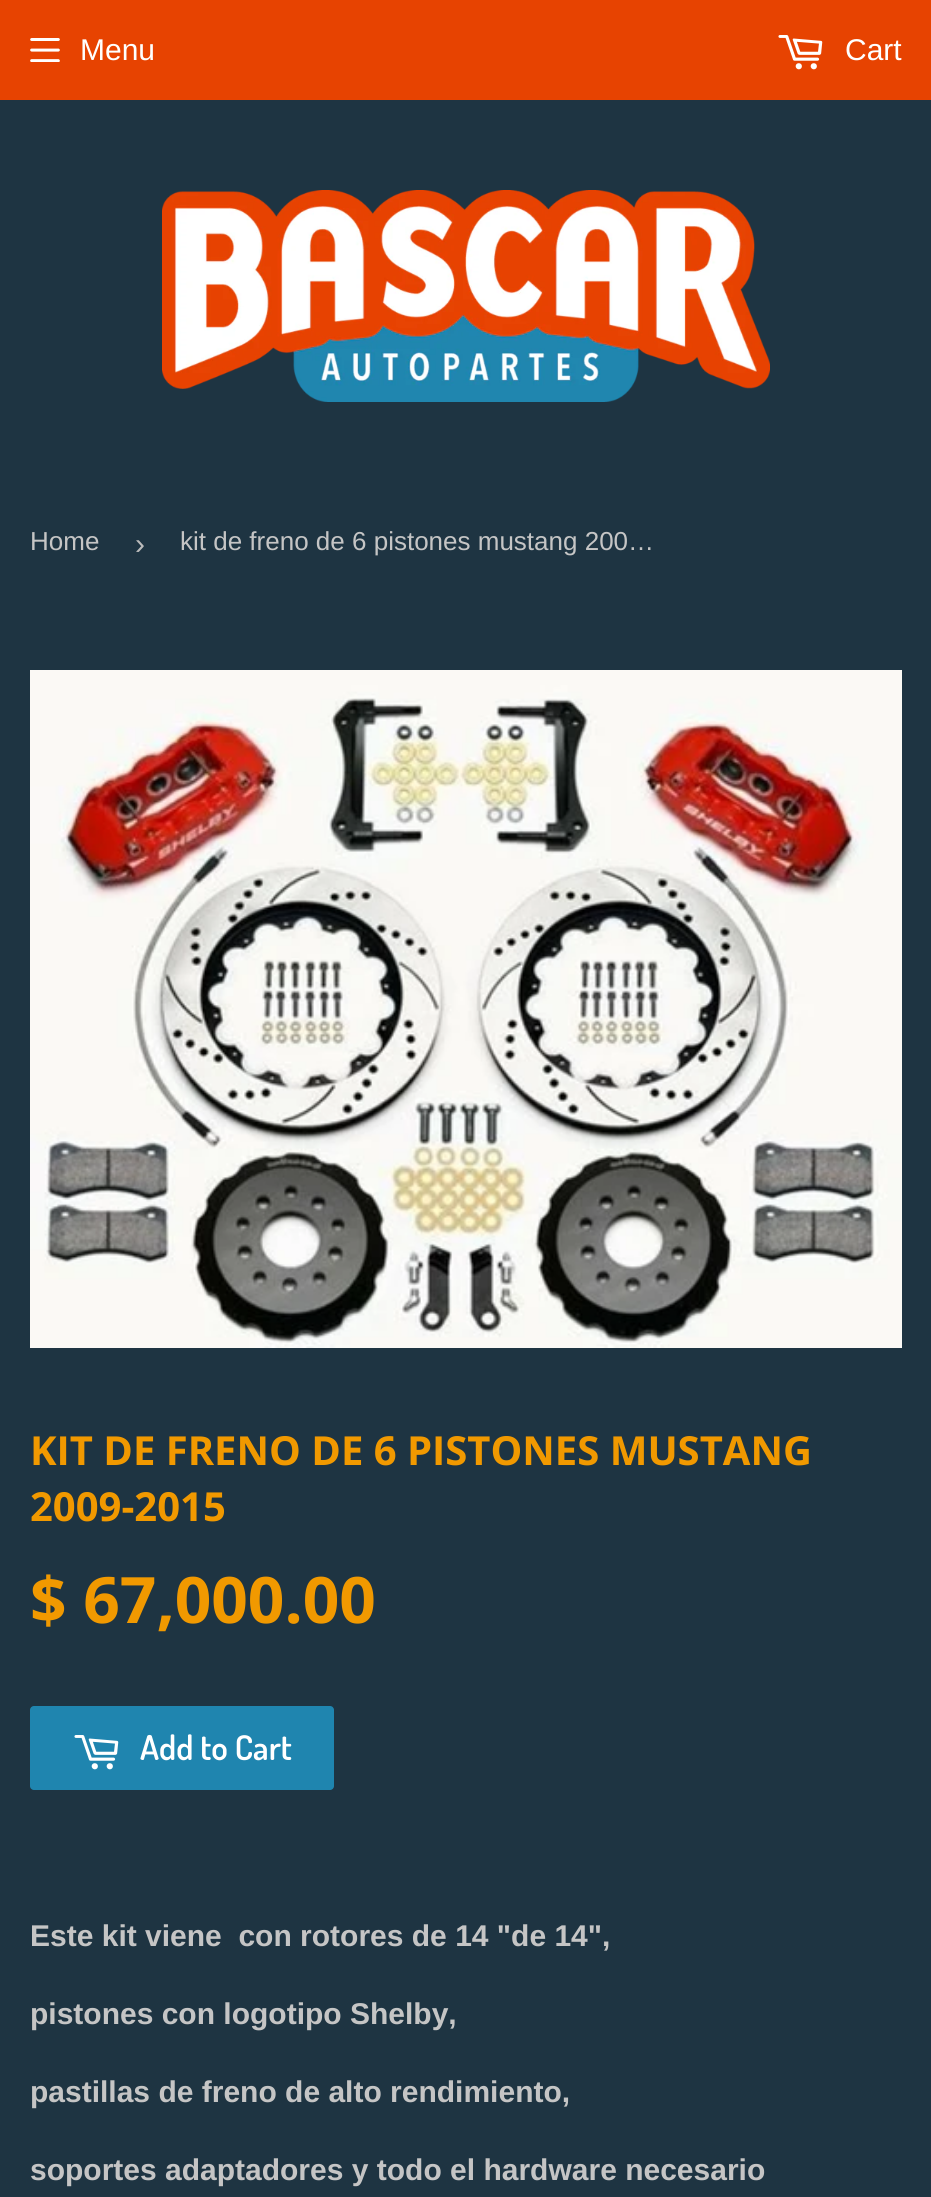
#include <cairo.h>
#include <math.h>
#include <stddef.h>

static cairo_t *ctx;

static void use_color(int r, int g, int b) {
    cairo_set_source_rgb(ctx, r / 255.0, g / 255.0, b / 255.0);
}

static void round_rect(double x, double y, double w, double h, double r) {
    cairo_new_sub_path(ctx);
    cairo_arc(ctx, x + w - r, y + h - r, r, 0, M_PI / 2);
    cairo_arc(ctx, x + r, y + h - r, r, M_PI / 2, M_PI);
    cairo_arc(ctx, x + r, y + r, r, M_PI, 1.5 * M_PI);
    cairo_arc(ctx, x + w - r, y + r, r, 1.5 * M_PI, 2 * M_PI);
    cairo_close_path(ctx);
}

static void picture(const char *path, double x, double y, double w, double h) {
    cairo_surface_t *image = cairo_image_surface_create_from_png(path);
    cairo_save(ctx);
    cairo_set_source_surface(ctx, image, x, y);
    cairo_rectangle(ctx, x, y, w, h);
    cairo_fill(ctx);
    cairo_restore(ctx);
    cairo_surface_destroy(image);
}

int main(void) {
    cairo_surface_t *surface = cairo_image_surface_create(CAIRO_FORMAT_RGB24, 931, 2197);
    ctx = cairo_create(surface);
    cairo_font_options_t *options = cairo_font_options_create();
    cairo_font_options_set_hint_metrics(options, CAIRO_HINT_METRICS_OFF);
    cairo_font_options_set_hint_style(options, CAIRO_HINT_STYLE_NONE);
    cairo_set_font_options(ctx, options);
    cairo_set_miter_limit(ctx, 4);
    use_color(30, 52, 66);
    cairo_paint(ctx);
    use_color(231, 67, 1);
    cairo_rectangle(ctx, 0, 0, 931, 100);
    cairo_fill(ctx);
    picture("img1.png", 30, 38, 30, 24);
    cairo_select_font_face(ctx, "Liberation Sans", CAIRO_FONT_SLANT_NORMAL, CAIRO_FONT_WEIGHT_NORMAL);
    cairo_set_font_size(ctx, 30);
    use_color(255, 255, 255);
    cairo_move_to(ctx, 80, 60);
    cairo_show_text(ctx, "Menu");
    picture("img2.png", 778, 35, 45, 35);
    cairo_move_to(ctx, 845, 60);
    cairo_show_text(ctx, "Cart");
    picture("img3.png", 162, 190, 608, 212);
    cairo_set_font_size(ctx, 26);
    use_color(197, 197, 197);
    cairo_move_to(ctx, 30, 550);
    cairo_show_text(ctx, "Home");
    cairo_set_font_size(ctx, 30);
    use_color(187, 187, 187);
    cairo_move_to(ctx, 135, 554);
    cairo_show_text(ctx, "›");
    cairo_set_font_size(ctx, 26);
    use_color(197, 197, 197);
    cairo_move_to(ctx, 180, 550);
    cairo_show_text(ctx, "kit de freno de 6 pistones mustang 200…");
    picture("img4.png", 30, 670, 872, 678);
    cairo_select_font_face(ctx, "Open Sans", CAIRO_FONT_SLANT_NORMAL, CAIRO_FONT_WEIGHT_BOLD);
    cairo_set_font_size(ctx, 40);
    use_color(241, 153, 0);
    cairo_move_to(ctx, 30, 1465);
    cairo_show_text(ctx, "KIT DE FRENO DE 6 PISTONES MUSTANG");
    cairo_move_to(ctx, 30, 1521);
    cairo_show_text(ctx, "2009-2015");
    cairo_set_font_size(ctx, 64);
    cairo_move_to(ctx, 30, 1623);
    cairo_show_text(ctx, "$ 67,000.00");
    use_color(31, 133, 175);
    round_rect(30, 1706, 304, 84, 4);
    cairo_fill(ctx);
    picture("img5.png", 74, 1735, 45, 35);
    cairo_select_font_face(ctx, "Dosis SemiBold", CAIRO_FONT_SLANT_NORMAL, CAIRO_FONT_WEIGHT_NORMAL);
    cairo_set_font_size(ctx, 34);
    use_color(255, 255, 255);
    cairo_move_to(ctx, 140, 1760);
    cairo_show_text(ctx, "Add to Cart");
    cairo_select_font_face(ctx, "Liberation Sans", CAIRO_FONT_SLANT_NORMAL, CAIRO_FONT_WEIGHT_BOLD);
    cairo_set_font_size(ctx, 30);
    use_color(197, 197, 197);
    cairo_move_to(ctx, 30, 1946);
    cairo_show_text(ctx, "Este kit viene  con rotores de 14 \"de 14\",");
    cairo_move_to(ctx, 30, 2024);
    cairo_show_text(ctx, "pistones con logotipo Shelby,");
    cairo_move_to(ctx, 30, 2102);
    cairo_show_text(ctx, "pastillas de freno de alto rendimiento,");
    cairo_move_to(ctx, 30, 2180);
    cairo_show_text(ctx, "soportes adaptadores y todo el hardware necesario");
    cairo_surface_write_to_png(surface, "result.png");
    cairo_font_options_destroy(options);
    cairo_destroy(ctx);
    cairo_surface_destroy(surface);
    return 0;
}
